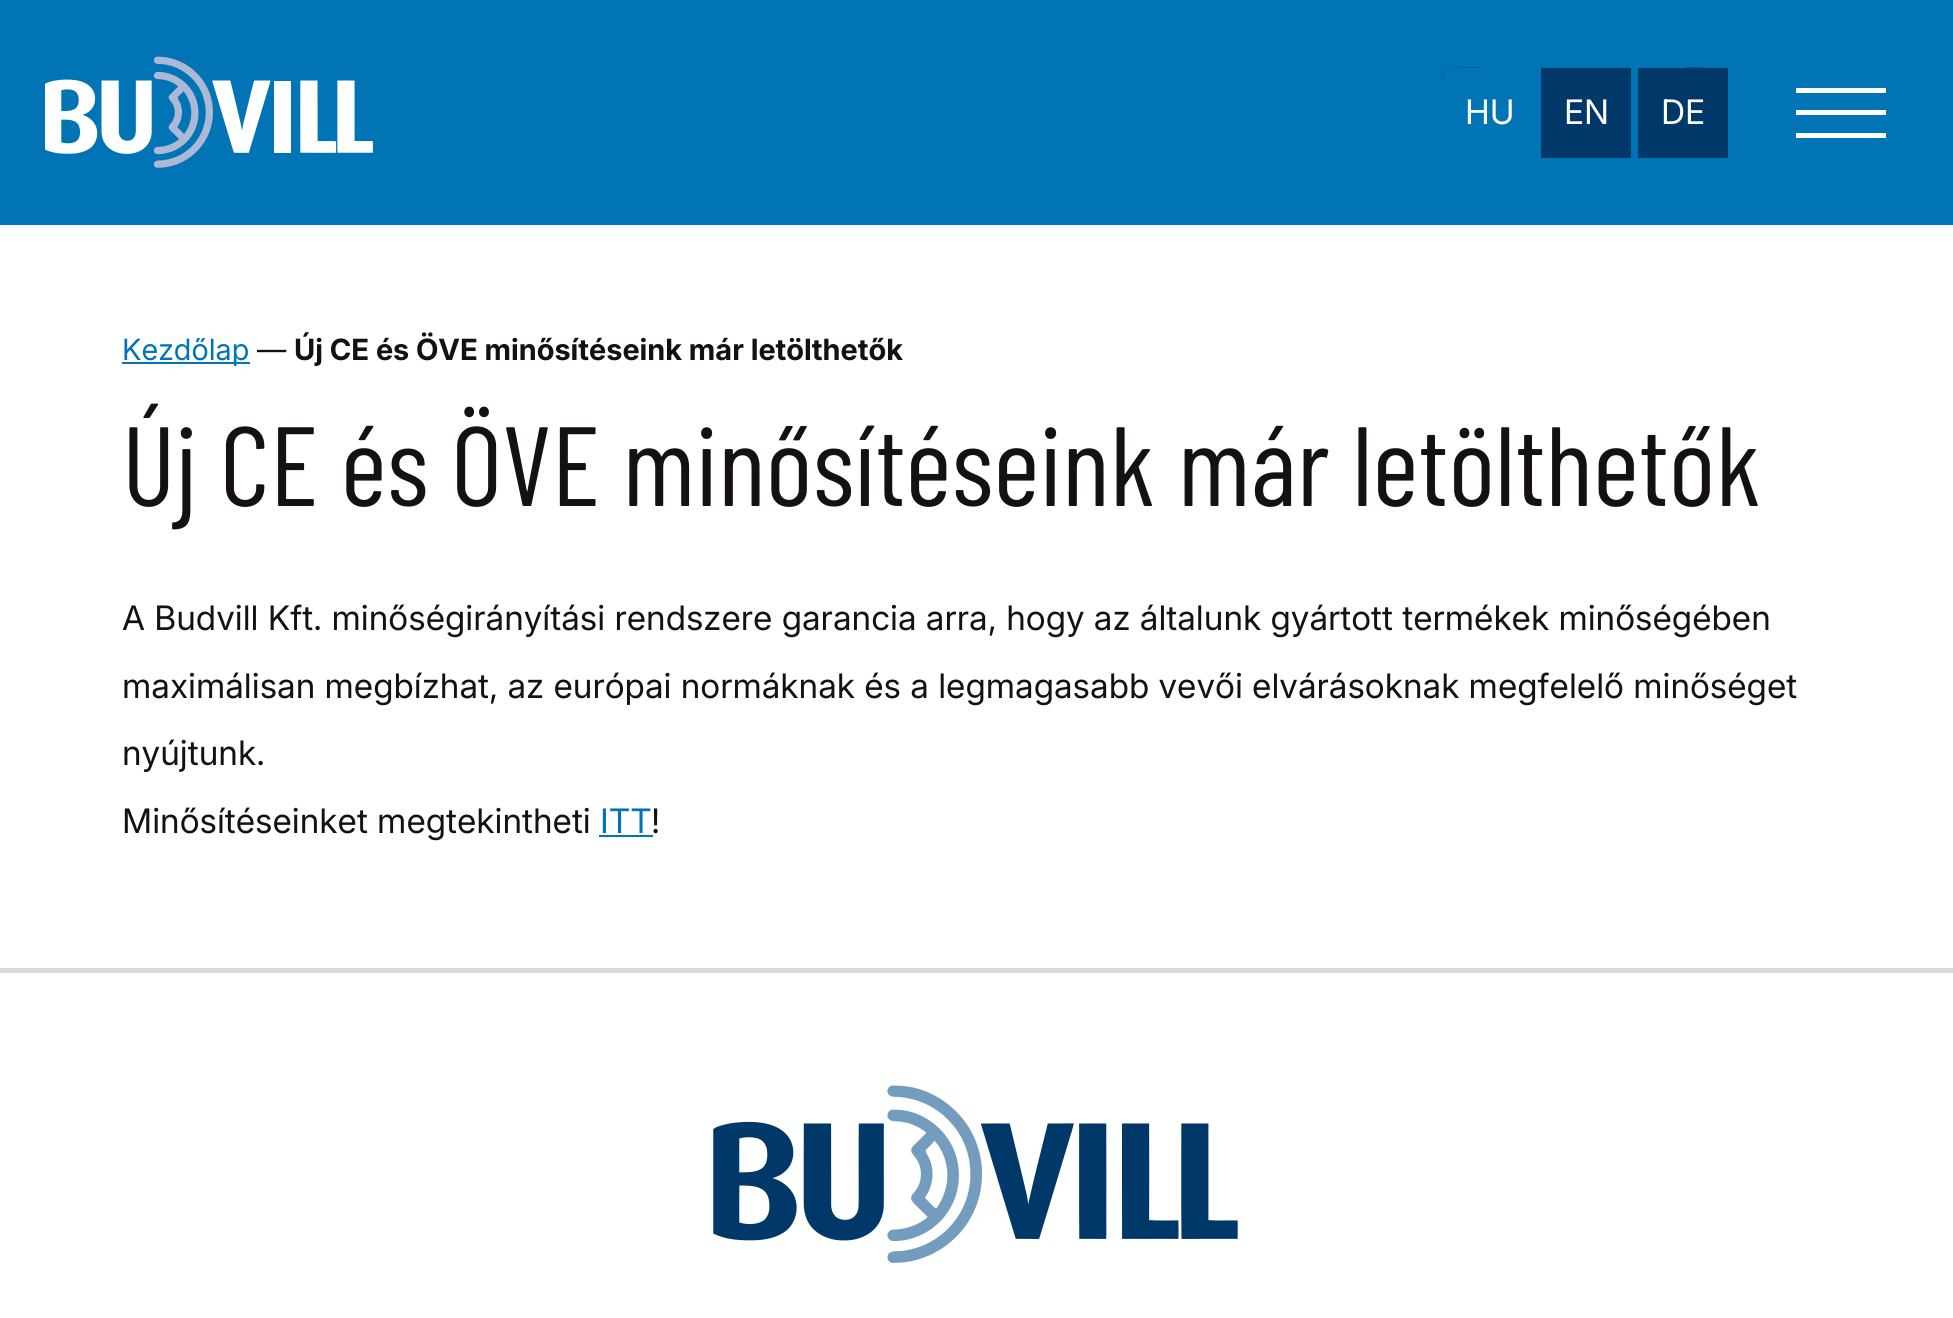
#include <cairo.h>
#include <math.h>
#include <stddef.h>

static cairo_t *ctx;

static void use_color(int r, int g, int b) {
    cairo_set_source_rgb(ctx, r / 255.0, g / 255.0, b / 255.0);
}

static void picture(const char *path, double x, double y, double w, double h) {
    cairo_surface_t *image = cairo_image_surface_create_from_png(path);
    cairo_save(ctx);
    cairo_set_source_surface(ctx, image, x, y);
    cairo_rectangle(ctx, x, y, w, h);
    cairo_fill(ctx);
    cairo_restore(ctx);
    cairo_surface_destroy(image);
}

int main(void) {
    cairo_surface_t *surface = cairo_image_surface_create(CAIRO_FORMAT_RGB24, 1953, 1318);
    ctx = cairo_create(surface);
    cairo_font_options_t *options = cairo_font_options_create();
    cairo_font_options_set_hint_metrics(options, CAIRO_HINT_METRICS_OFF);
    cairo_font_options_set_hint_style(options, CAIRO_HINT_STYLE_NONE);
    cairo_set_font_options(ctx, options);
    cairo_set_miter_limit(ctx, 4);
    use_color(255, 255, 255);
    cairo_paint(ctx);
    use_color(1, 116, 181);
    cairo_rectangle(ctx, 0, 0, 1953, 225);
    cairo_fill(ctx);
    picture("img1.png", 45, 56, 328, 112);
    picture("img2.png", 1440, 67, 283, 12);
    cairo_rectangle(ctx, 1445, 68, 36, 11);
    cairo_fill(ctx);
    cairo_select_font_face(ctx, "Inter", CAIRO_FONT_SLANT_NORMAL, CAIRO_FONT_WEIGHT_NORMAL);
    cairo_set_font_size(ctx, 33.75);
    use_color(255, 255, 255);
    cairo_move_to(ctx, 1465, 124);
    cairo_show_text(ctx, "HU");
    use_color(0, 56, 105);
    cairo_rectangle(ctx, 1541, 68, 90, 90);
    cairo_fill(ctx);
    use_color(255, 255, 255);
    cairo_move_to(ctx, 1564, 124);
    cairo_show_text(ctx, "EN");
    use_color(0, 56, 105);
    cairo_rectangle(ctx, 1638, 68, 90, 90);
    cairo_fill(ctx);
    use_color(255, 255, 255);
    cairo_move_to(ctx, 1661, 124);
    cairo_show_text(ctx, "DE");
    cairo_rectangle(ctx, 1796, 110, 90, 5);
    cairo_fill(ctx);
    cairo_rectangle(ctx, 1796, 88, 90, 5);
    cairo_fill(ctx);
    cairo_rectangle(ctx, 1796, 133, 90, 5);
    cairo_fill(ctx);
    use_color(1, 116, 181);
    cairo_rectangle(ctx, 122, 362, 128, 2);
    cairo_fill(ctx);
    cairo_set_font_size(ctx, 29.25);
    cairo_move_to(ctx, 122, 360);
    cairo_show_text(ctx, "Kezdőlap");
    use_color(21, 17, 16);
    cairo_move_to(ctx, 257, 360);
    cairo_show_text(ctx, "—");
    cairo_select_font_face(ctx, "Inter", CAIRO_FONT_SLANT_NORMAL, CAIRO_FONT_WEIGHT_BOLD);
    cairo_move_to(ctx, 294, 360);
    cairo_show_text(ctx, "Új CE és ÖVE minősítéseink már letölthetők");
    cairo_select_font_face(ctx, "Barlow Condensed", CAIRO_FONT_SLANT_NORMAL, CAIRO_FONT_WEIGHT_NORMAL);
    cairo_set_font_size(ctx, 112.5);
    cairo_move_to(ctx, 122, 506);
    cairo_show_text(ctx, "Új CE és ÖVE minősítéseink már letölthetők");
    cairo_select_font_face(ctx, "Inter", CAIRO_FONT_SLANT_NORMAL, CAIRO_FONT_WEIGHT_NORMAL);
    cairo_set_font_size(ctx, 33.75);
    cairo_move_to(ctx, 122, 630);
    cairo_show_text(ctx, "A Budvill Kft. minőségirányítási rendszere garancia arra, hogy az általunk gyártott termékek minőségében");
    cairo_move_to(ctx, 122, 698);
    cairo_show_text(ctx, "maximálisan megbízhat, az európai normáknak és a legmagasabb vevői elvárásoknak megfelelő minőséget");
    cairo_move_to(ctx, 122, 765);
    cairo_show_text(ctx, "nyújtunk.");
    cairo_move_to(ctx, 122, 833);
    cairo_show_text(ctx, "Minősítéseinket megtekintheti");
    use_color(1, 116, 181);
    cairo_move_to(ctx, 600, 833);
    cairo_show_text(ctx, "ITT");
    cairo_rectangle(ctx, 599, 835, 54, 2);
    cairo_fill(ctx);
    use_color(21, 17, 16);
    cairo_move_to(ctx, 651, 833);
    cairo_show_text(ctx, "!");
    use_color(218, 218, 218);
    cairo_rectangle(ctx, 0, 968, 1953, 5);
    cairo_fill(ctx);
    picture("img3.png", 713, 1085, 525, 178);
    cairo_surface_write_to_png(surface, "result.png");
    cairo_font_options_destroy(options);
    cairo_destroy(ctx);
    cairo_surface_destroy(surface);
    return 0;
}
